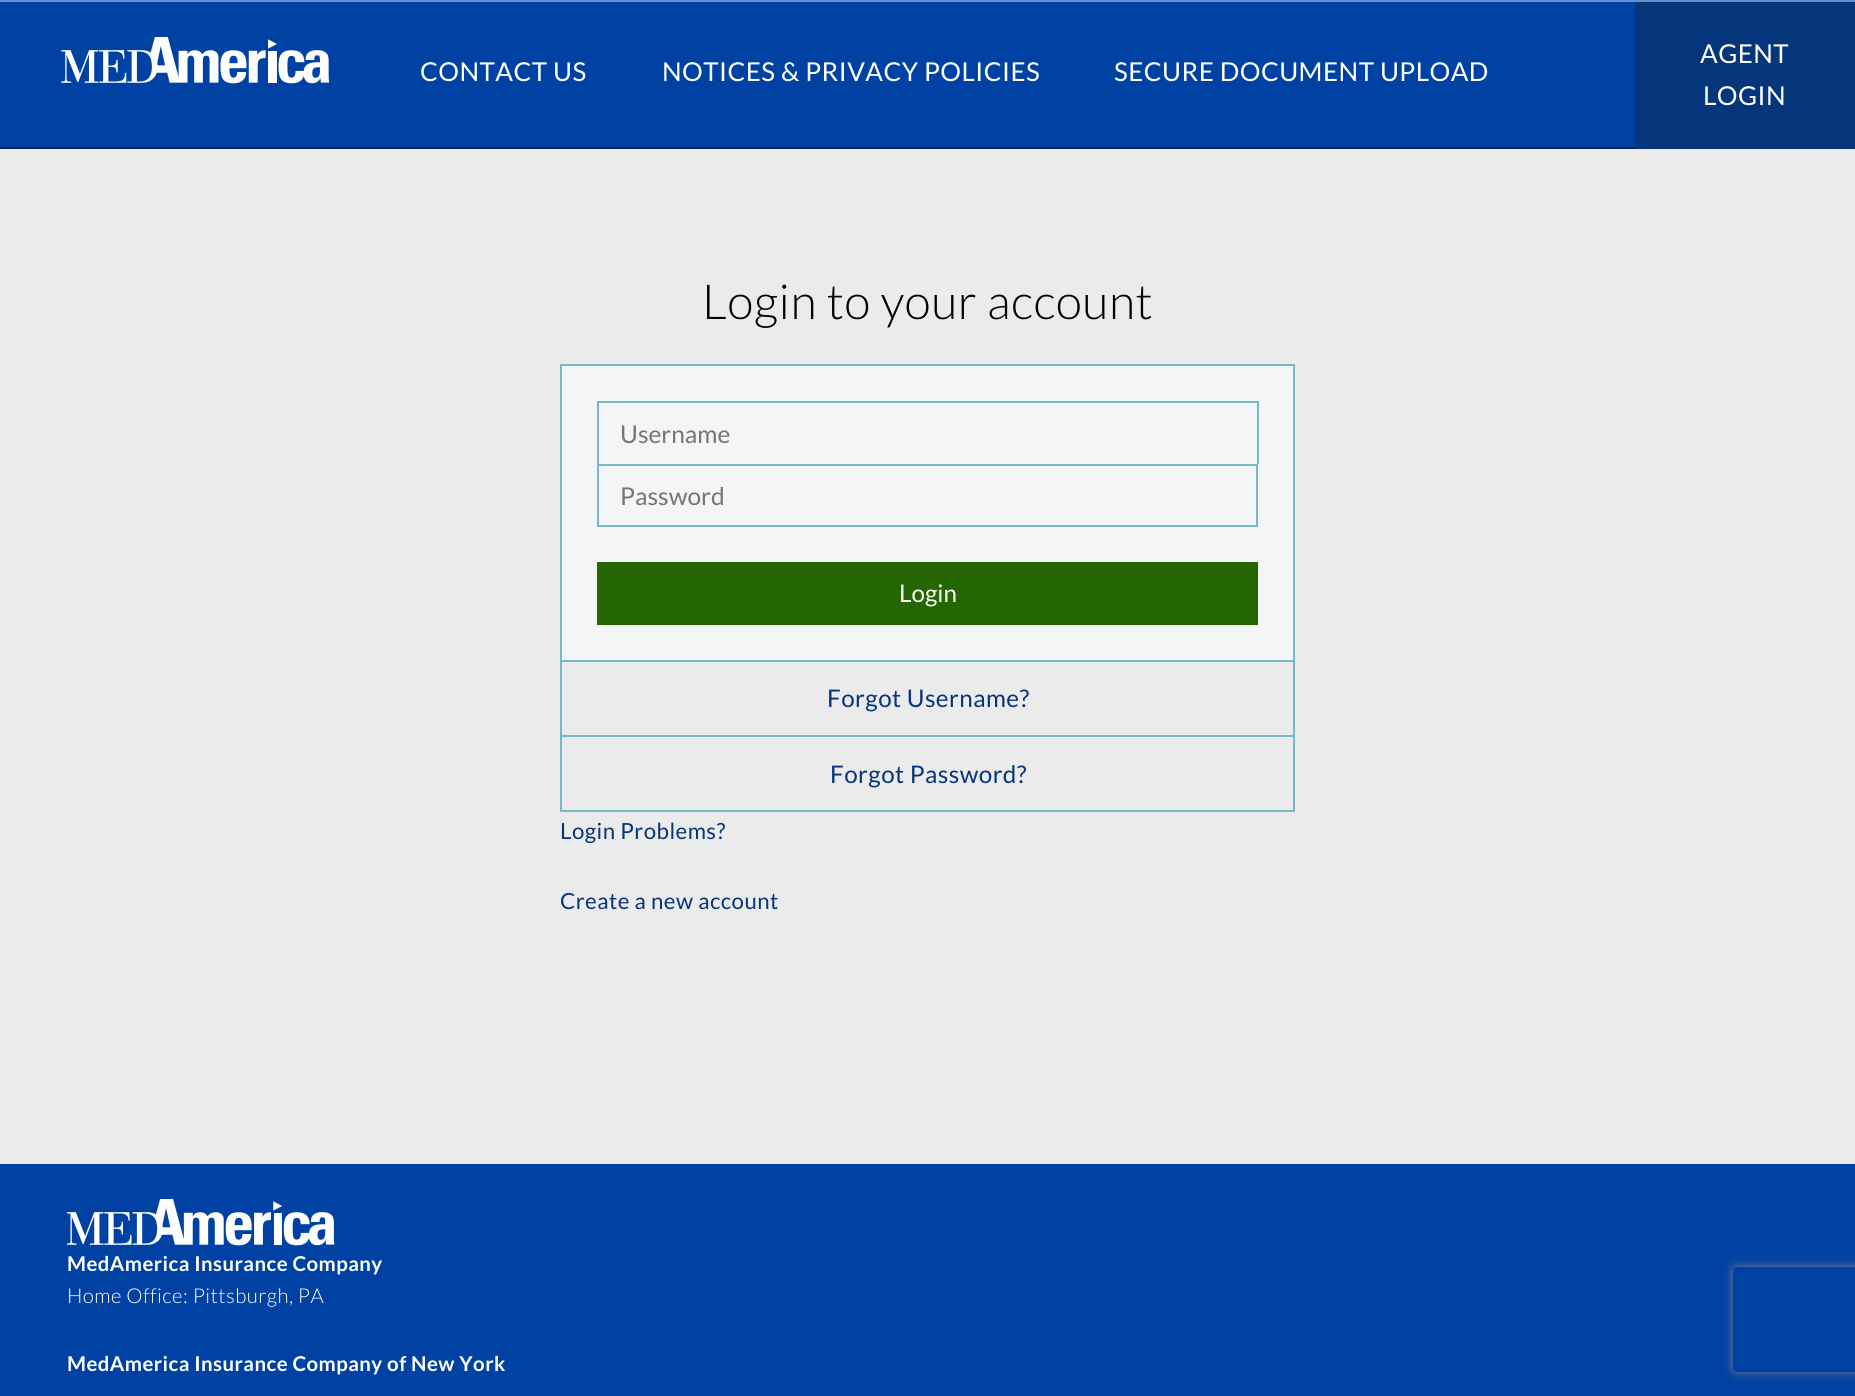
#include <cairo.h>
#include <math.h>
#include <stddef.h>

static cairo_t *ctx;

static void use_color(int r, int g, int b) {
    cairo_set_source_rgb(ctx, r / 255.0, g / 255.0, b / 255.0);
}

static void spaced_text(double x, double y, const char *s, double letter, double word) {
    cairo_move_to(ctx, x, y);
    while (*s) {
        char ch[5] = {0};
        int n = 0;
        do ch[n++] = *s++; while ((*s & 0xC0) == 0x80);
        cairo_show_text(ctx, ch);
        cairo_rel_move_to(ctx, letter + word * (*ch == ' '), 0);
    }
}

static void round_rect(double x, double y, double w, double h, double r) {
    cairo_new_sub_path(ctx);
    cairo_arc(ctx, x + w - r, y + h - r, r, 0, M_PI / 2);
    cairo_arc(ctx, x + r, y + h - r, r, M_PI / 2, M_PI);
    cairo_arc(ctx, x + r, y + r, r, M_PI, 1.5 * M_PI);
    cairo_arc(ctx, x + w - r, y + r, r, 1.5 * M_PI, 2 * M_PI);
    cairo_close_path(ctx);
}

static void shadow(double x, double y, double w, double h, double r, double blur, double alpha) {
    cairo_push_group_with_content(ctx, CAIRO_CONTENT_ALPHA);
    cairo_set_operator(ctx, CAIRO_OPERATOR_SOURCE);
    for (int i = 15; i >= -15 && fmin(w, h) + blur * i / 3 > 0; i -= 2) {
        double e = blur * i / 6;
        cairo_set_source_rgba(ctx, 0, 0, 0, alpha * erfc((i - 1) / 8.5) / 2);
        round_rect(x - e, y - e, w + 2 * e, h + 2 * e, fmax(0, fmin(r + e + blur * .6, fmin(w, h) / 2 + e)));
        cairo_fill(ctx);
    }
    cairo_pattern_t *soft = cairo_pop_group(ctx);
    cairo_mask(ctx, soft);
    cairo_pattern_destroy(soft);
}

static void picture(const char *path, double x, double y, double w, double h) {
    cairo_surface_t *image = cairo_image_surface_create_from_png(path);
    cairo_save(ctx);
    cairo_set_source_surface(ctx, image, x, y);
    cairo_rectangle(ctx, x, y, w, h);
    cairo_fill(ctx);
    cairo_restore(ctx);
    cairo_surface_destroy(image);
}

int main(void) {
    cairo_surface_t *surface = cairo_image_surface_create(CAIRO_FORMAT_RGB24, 1855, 1396);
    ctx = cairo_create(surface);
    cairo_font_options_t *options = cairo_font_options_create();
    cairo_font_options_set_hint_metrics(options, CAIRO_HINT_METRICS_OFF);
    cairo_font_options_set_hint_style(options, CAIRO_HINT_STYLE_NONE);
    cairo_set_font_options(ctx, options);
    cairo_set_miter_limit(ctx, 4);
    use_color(235, 235, 235);
    cairo_paint(ctx);
    use_color(0, 66, 164);
    cairo_rectangle(ctx, 0, 2, 1635, 145);
    cairo_fill(ctx);
    use_color(102, 142, 200);
    cairo_rectangle(ctx, 0, 0, 1855, 2);
    cairo_fill(ctx);
    use_color(0, 40, 98);
    cairo_rectangle(ctx, 0, 147, 1635, 2);
    cairo_fill(ctx);
    picture("img1.png", 61, 37, 269, 47);
    cairo_select_font_face(ctx, "Lato", CAIRO_FONT_SLANT_NORMAL, CAIRO_FONT_WEIGHT_NORMAL);
    cairo_set_font_size(ctx, 26);
    use_color(255, 255, 255);
    spaced_text(420, 81, "CONTACT US", 0.45, 0);
    spaced_text(662, 81, "NOTICES & PRIVACY POLICIES", 0.45, 0);
    spaced_text(1114, 81, "SECURE DOCUMENT UPLOAD", 0.45, 0);
    use_color(5, 53, 123);
    cairo_rectangle(ctx, 1635, 2, 220, 147);
    cairo_fill(ctx);
    use_color(255, 255, 255);
    spaced_text(1700, 63, "AGENT", 0.45, 0);
    spaced_text(1703, 105, "LOGIN", 0.45, 0);
    cairo_select_font_face(ctx, "Lato Light", CAIRO_FONT_SLANT_NORMAL, CAIRO_FONT_WEIGHT_NORMAL);
    cairo_set_font_size(ctx, 48.25);
    use_color(0, 0, 0);
    spaced_text(702, 319, "Login to your account", 0.45, 0);
    use_color(244, 245, 247);
    cairo_rectangle(ctx, 562, 366, 731, 294);
    cairo_fill(ctx);
    cairo_rectangle(ctx, 561, 365, 733, 446);
    use_color(123, 183, 202);
    cairo_stroke(ctx);
    cairo_rectangle(ctx, 597, 401, 661, 2);
    cairo_fill(ctx);
    cairo_rectangle(ctx, 1257, 401, 2, 63);
    cairo_fill(ctx);
    cairo_rectangle(ctx, 597, 401, 2, 63);
    cairo_fill(ctx);
    cairo_select_font_face(ctx, "Lato", CAIRO_FONT_SLANT_NORMAL, CAIRO_FONT_WEIGHT_NORMAL);
    cairo_set_font_size(ctx, 24.5);
    use_color(117, 117, 117);
    cairo_move_to(ctx, 620, 443);
    cairo_show_text(ctx, "Username");
    cairo_rectangle(ctx, 598, 465, 659, 61);
    use_color(123, 183, 202);
    cairo_stroke(ctx);
    use_color(117, 117, 117);
    cairo_move_to(ctx, 620, 505);
    cairo_show_text(ctx, "Password");
    use_color(36, 102, 0);
    cairo_rectangle(ctx, 597, 562, 661, 63);
    cairo_fill(ctx);
    cairo_set_font_size(ctx, 24.25);
    use_color(255, 255, 255);
    cairo_move_to(ctx, 899, 602);
    cairo_show_text(ctx, "Login");
    use_color(123, 183, 202);
    cairo_rectangle(ctx, 562, 660, 731, 2);
    cairo_fill(ctx);
    use_color(5, 53, 123);
    spaced_text(827, 707, "Forgot Username?", 0.45, 0);
    use_color(123, 183, 202);
    cairo_rectangle(ctx, 562, 735, 731, 2);
    cairo_fill(ctx);
    use_color(5, 53, 123);
    spaced_text(830, 783, "Forgot Password?", 0.45, 0);
    cairo_set_font_size(ctx, 22.25);
    spaced_text(560, 839, "Login Problems?", 0.45, 0);
    spaced_text(560, 909, "Create a new account", 0.45, 0);
    use_color(0, 66, 164);
    cairo_rectangle(ctx, 0, 1164, 1855, 232);
    cairo_fill(ctx);
    picture("img2.png", 67, 1199, 268, 47);
    cairo_select_font_face(ctx, "Lato", CAIRO_FONT_SLANT_NORMAL, CAIRO_FONT_WEIGHT_BOLD);
    cairo_set_font_size(ctx, 20.4);
    use_color(255, 255, 255);
    spaced_text(67, 1271, "MedAmerica Insurance Company", 0.45, 0);
    cairo_select_font_face(ctx, "Lato Light", CAIRO_FONT_SLANT_NORMAL, CAIRO_FONT_WEIGHT_NORMAL);
    spaced_text(67, 1303, "Home Office: Pittsburgh, PA", 0.45, 0);
    cairo_select_font_face(ctx, "Lato", CAIRO_FONT_SLANT_NORMAL, CAIRO_FONT_WEIGHT_BOLD);
    spaced_text(67, 1371, "MedAmerica Insurance Company of New York", 0.45, 0);
    cairo_save(ctx);
    cairo_set_fill_rule(ctx, CAIRO_FILL_RULE_EVEN_ODD);
    cairo_new_path(ctx);
    cairo_move_to(ctx, 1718, 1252);
    cairo_line_to(ctx, 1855, 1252);
    cairo_line_to(ctx, 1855, 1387);
    cairo_line_to(ctx, 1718, 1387);
    cairo_close_path(ctx);
    cairo_move_to(ctx, 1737, 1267);
    cairo_line_to(ctx, 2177, 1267);
    cairo_curve_to(ctx, 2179, 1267, 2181, 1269, 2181, 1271);
    cairo_line_to(ctx, 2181, 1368);
    cairo_curve_to(ctx, 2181, 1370, 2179, 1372, 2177, 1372);
    cairo_line_to(ctx, 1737, 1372);
    cairo_curve_to(ctx, 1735, 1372, 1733, 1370, 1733, 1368);
    cairo_line_to(ctx, 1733, 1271);
    cairo_curve_to(ctx, 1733, 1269, 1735, 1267, 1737, 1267);
    cairo_close_path(ctx);
    cairo_clip(ctx);
    use_color(128, 128, 128);
    shadow(1733, 1267, 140, 105, 4, 4.5, 1);
    cairo_restore(ctx);
    cairo_surface_write_to_png(surface, "result.png");
    cairo_font_options_destroy(options);
    cairo_destroy(ctx);
    cairo_surface_destroy(surface);
    return 0;
}
